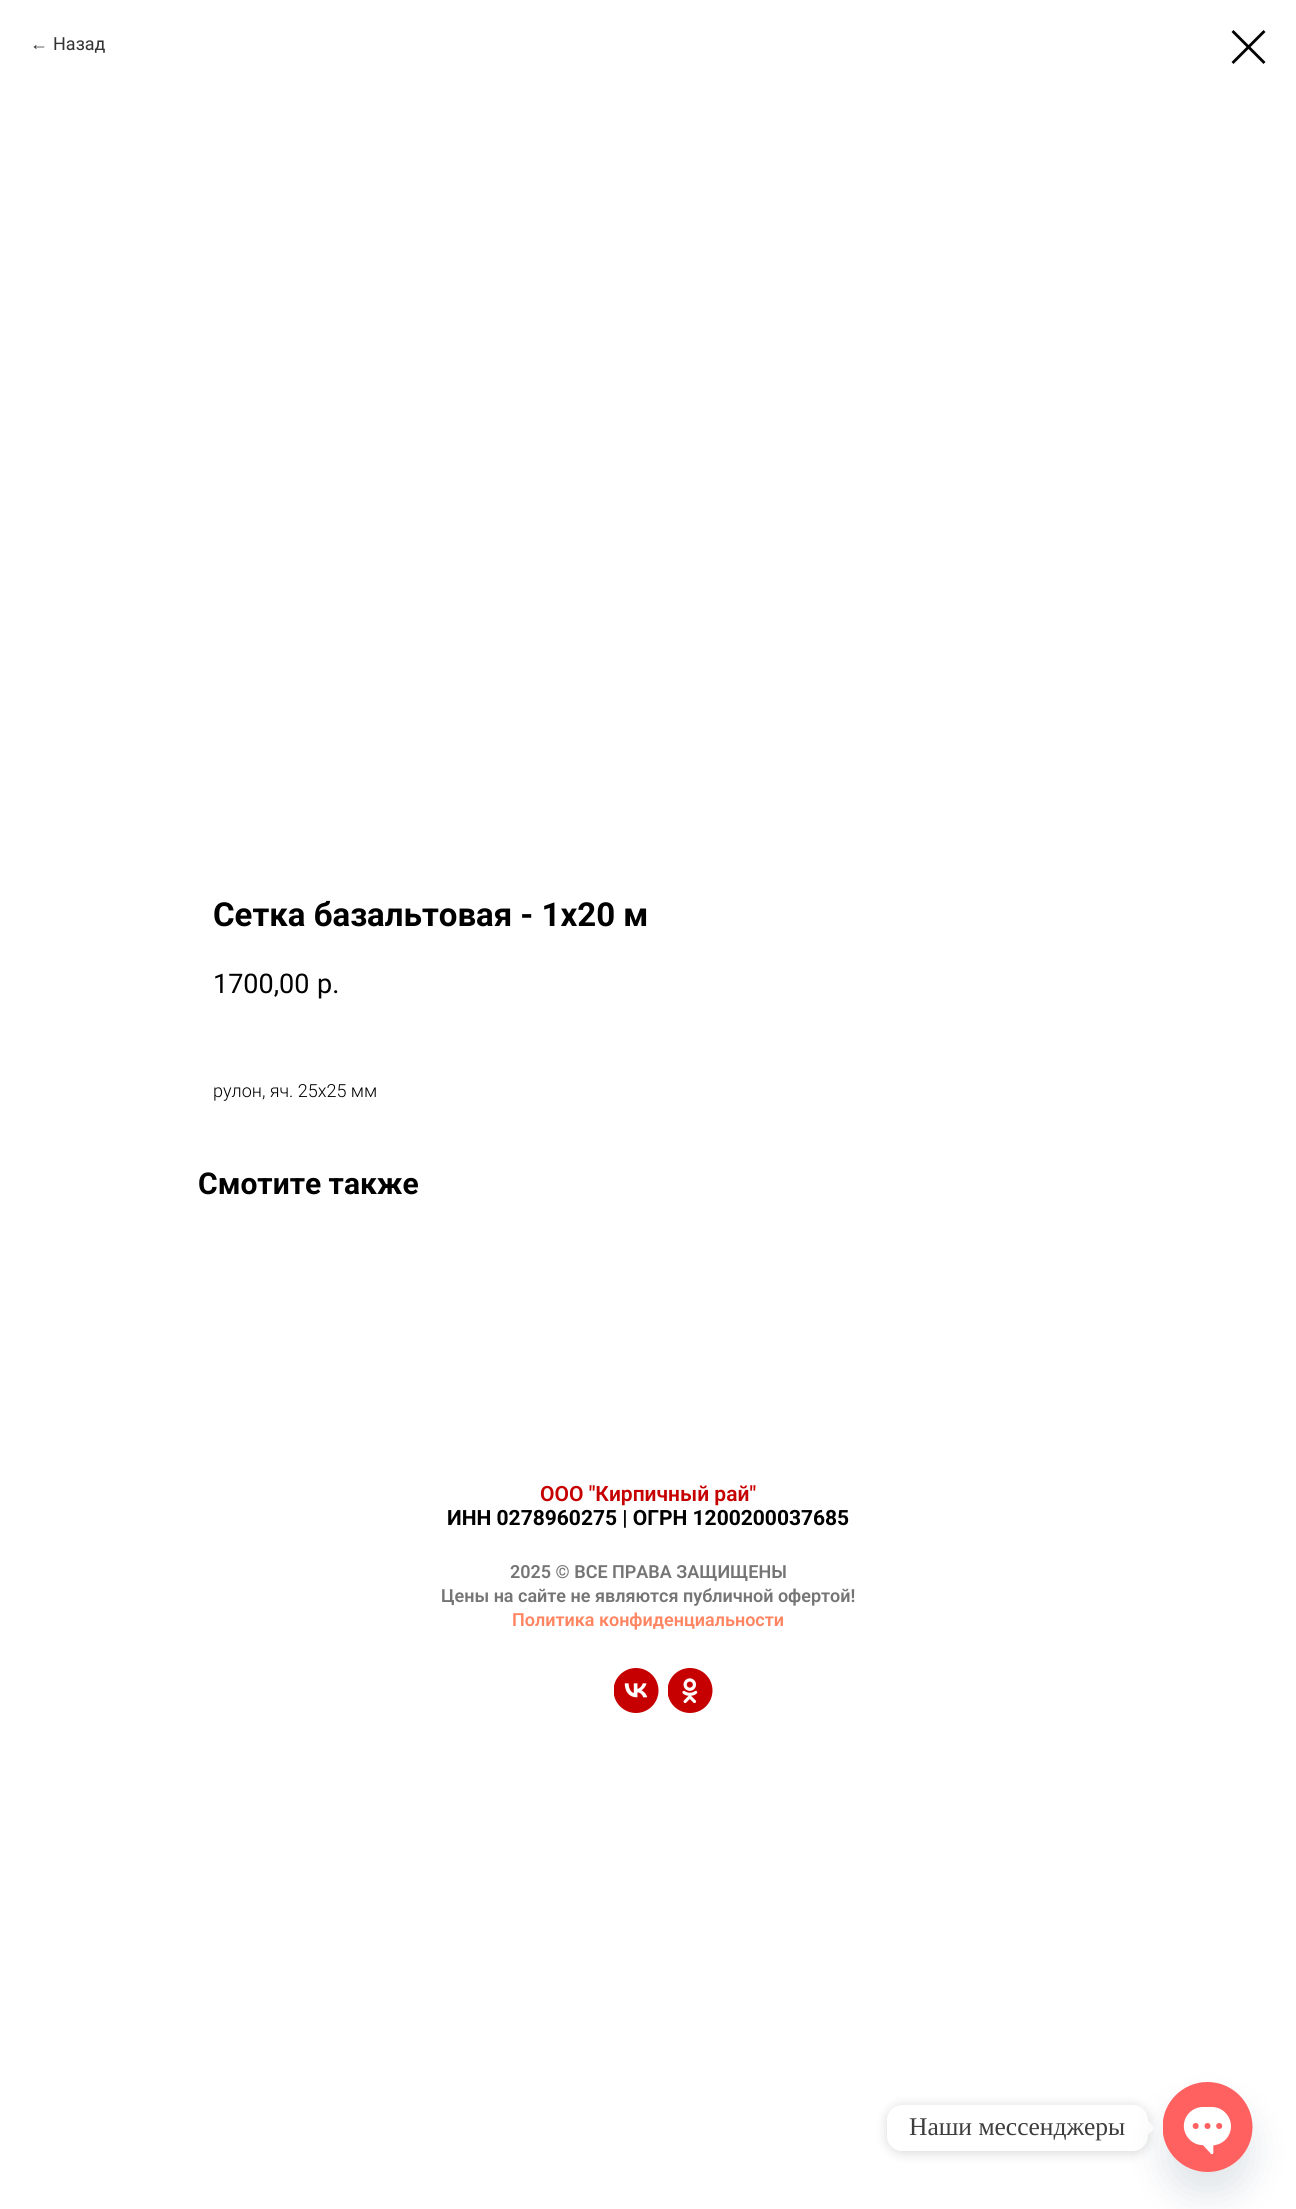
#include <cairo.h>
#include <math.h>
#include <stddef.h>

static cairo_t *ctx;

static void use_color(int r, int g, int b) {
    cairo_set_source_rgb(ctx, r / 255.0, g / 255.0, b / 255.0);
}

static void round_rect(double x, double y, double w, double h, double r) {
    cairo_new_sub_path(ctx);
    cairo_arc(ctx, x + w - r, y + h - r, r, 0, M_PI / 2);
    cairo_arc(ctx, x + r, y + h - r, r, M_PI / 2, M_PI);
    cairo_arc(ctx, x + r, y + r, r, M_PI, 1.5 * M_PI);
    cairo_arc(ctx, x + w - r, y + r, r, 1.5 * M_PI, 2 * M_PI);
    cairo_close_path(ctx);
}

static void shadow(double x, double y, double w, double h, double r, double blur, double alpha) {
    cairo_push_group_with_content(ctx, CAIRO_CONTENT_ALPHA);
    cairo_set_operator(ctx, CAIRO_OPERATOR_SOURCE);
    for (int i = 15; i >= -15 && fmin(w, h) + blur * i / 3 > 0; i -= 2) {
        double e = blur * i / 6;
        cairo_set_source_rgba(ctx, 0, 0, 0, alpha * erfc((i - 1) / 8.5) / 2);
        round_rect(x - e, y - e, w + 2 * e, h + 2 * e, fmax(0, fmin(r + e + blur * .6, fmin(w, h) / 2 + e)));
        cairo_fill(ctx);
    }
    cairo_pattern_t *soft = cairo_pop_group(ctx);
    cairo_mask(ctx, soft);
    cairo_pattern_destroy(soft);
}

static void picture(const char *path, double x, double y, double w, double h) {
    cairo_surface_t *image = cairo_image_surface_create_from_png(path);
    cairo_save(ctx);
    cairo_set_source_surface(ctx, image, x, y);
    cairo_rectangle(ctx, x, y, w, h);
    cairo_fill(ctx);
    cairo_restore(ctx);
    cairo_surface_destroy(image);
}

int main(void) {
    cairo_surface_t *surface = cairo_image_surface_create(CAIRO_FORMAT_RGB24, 1296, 2209);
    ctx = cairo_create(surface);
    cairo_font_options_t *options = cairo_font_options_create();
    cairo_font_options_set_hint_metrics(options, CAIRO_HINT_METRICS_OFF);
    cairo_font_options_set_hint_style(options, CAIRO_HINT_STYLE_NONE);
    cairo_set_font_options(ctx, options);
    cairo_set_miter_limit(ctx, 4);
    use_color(255, 255, 255);
    cairo_paint(ctx);
    cairo_select_font_face(ctx, "Liberation Sans", CAIRO_FONT_SLANT_NORMAL, CAIRO_FONT_WEIGHT_NORMAL);
    cairo_set_font_size(ctx, 18);
    use_color(51, 51, 51);
    cairo_move_to(ctx, 30, 50);
    cairo_show_text(ctx, "←");
    cairo_select_font_face(ctx, "Roboto", CAIRO_FONT_SLANT_NORMAL, CAIRO_FONT_WEIGHT_NORMAL);
    cairo_move_to(ctx, 53, 50);
    cairo_show_text(ctx, "Назад");
    use_color(0, 0, 0);
    cairo_set_fill_rule(ctx, CAIRO_FILL_RULE_EVEN_ODD);
    cairo_new_path(ctx);
    cairo_move_to(ctx, 1231.5, 32);
    cairo_line_to(ctx, 1233.5, 30);
    cairo_line_to(ctx, 1265.5, 62);
    cairo_line_to(ctx, 1263.5, 64);
    cairo_close_path(ctx);
    cairo_fill(ctx);
    cairo_new_path(ctx);
    cairo_move_to(ctx, 1263.5, 30);
    cairo_line_to(ctx, 1265.5, 32);
    cairo_line_to(ctx, 1233.5, 64);
    cairo_line_to(ctx, 1231.5, 62);
    cairo_close_path(ctx);
    cairo_fill(ctx);
    cairo_select_font_face(ctx, "Roboto", CAIRO_FONT_SLANT_NORMAL, CAIRO_FONT_WEIGHT_BOLD);
    cairo_set_font_size(ctx, 33);
    cairo_move_to(ctx, 213, 926);
    cairo_show_text(ctx, "Сетка базальтовая - 1х20 м");
    cairo_select_font_face(ctx, "Roboto", CAIRO_FONT_SLANT_NORMAL, CAIRO_FONT_WEIGHT_NORMAL);
    cairo_set_font_size(ctx, 27);
    cairo_move_to(ctx, 213, 993);
    cairo_show_text(ctx, "1700,00");
    cairo_move_to(ctx, 317, 993);
    cairo_show_text(ctx, "р.");
    cairo_select_font_face(ctx, "Roboto Light", CAIRO_FONT_SLANT_NORMAL, CAIRO_FONT_WEIGHT_NORMAL);
    cairo_set_font_size(ctx, 18);
    cairo_move_to(ctx, 213, 1097);
    cairo_show_text(ctx, "рулон, яч. 25х25 мм");
    cairo_select_font_face(ctx, "Roboto", CAIRO_FONT_SLANT_NORMAL, CAIRO_FONT_WEIGHT_BOLD);
    cairo_set_font_size(ctx, 30);
    cairo_move_to(ctx, 198, 1194);
    cairo_show_text(ctx, "Смотите также");
    cairo_select_font_face(ctx, "Roboto SemiBold", CAIRO_FONT_SLANT_NORMAL, CAIRO_FONT_WEIGHT_NORMAL);
    cairo_set_font_size(ctx, 21);
    use_color(198, 0, 1);
    cairo_move_to(ctx, 540, 1501);
    cairo_show_text(ctx, "ООО \"Кирпичный рай\"");
    cairo_select_font_face(ctx, "Roboto", CAIRO_FONT_SLANT_NORMAL, CAIRO_FONT_WEIGHT_BOLD);
    use_color(0, 0, 0);
    cairo_move_to(ctx, 447, 1525);
    cairo_show_text(ctx, "ИНН 0278960275 | ОГРН 1200200037685");
    cairo_select_font_face(ctx, "Roboto SemiBold", CAIRO_FONT_SLANT_NORMAL, CAIRO_FONT_WEIGHT_NORMAL);
    cairo_set_font_size(ctx, 18);
    use_color(117, 117, 117);
    cairo_move_to(ctx, 510, 1578);
    cairo_show_text(ctx, "2025 © ВСЕ ПРАВА ЗАЩИЩЕНЫ");
    cairo_move_to(ctx, 441, 1602);
    cairo_show_text(ctx, "Цены на сайте не являются публичной офертой!");
    use_color(255, 133, 98);
    cairo_move_to(ctx, 512, 1626);
    cairo_show_text(ctx, "Политика конфиденциальности");
    picture("img1.png", 614, 1668, 45, 45);
    picture("img2.png", 668, 1668, 45, 45);
    use_color(0, 0, 0);
    shadow(887, 2106, 261, 47, 15, 6, 0.15);
    use_color(255, 255, 255);
    round_rect(887, 2105, 261, 46, 15);
    cairo_fill(ctx);
    cairo_select_font_face(ctx, "Liberation Serif", CAIRO_FONT_SLANT_NORMAL, CAIRO_FONT_WEIGHT_NORMAL);
    cairo_set_font_size(ctx, 25.5);
    use_color(61, 61, 61);
    cairo_move_to(ctx, 909, 2135);
    cairo_show_text(ctx, "Наши мессенджеры");
    use_color(255, 255, 255);
    cairo_set_fill_rule(ctx, CAIRO_FILL_RULE_WINDING);
    cairo_new_path(ctx);
    cairo_move_to(ctx, 1147.5, 2135);
    cairo_line_to(ctx, 1147.5, 2120);
    cairo_line_to(ctx, 1155, 2128);
    cairo_close_path(ctx);
    cairo_fill(ctx);
    use_color(73, 104, 126);
    shadow(1163, 2106, 90, 90, 45, 18, 0.16);
    picture("img3.png", 1163, 2082, 90, 90);
    cairo_surface_write_to_png(surface, "result.png");
    cairo_font_options_destroy(options);
    cairo_destroy(ctx);
    cairo_surface_destroy(surface);
    return 0;
}
